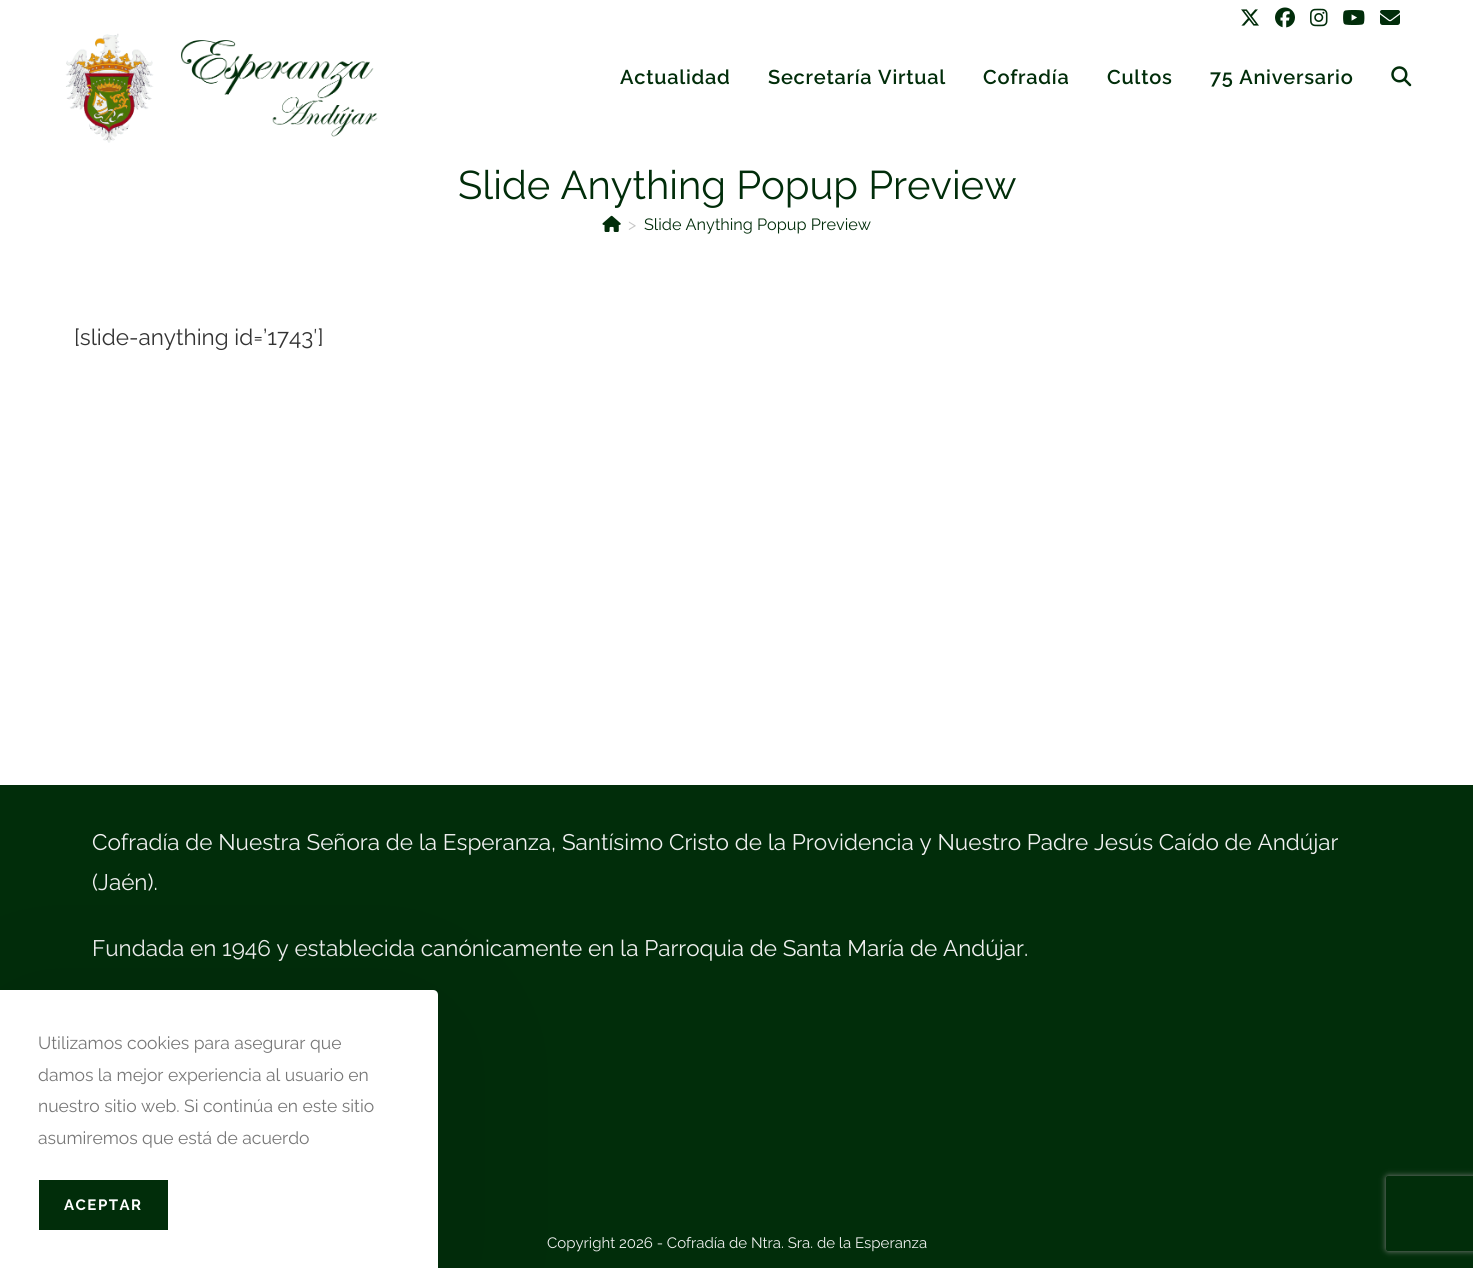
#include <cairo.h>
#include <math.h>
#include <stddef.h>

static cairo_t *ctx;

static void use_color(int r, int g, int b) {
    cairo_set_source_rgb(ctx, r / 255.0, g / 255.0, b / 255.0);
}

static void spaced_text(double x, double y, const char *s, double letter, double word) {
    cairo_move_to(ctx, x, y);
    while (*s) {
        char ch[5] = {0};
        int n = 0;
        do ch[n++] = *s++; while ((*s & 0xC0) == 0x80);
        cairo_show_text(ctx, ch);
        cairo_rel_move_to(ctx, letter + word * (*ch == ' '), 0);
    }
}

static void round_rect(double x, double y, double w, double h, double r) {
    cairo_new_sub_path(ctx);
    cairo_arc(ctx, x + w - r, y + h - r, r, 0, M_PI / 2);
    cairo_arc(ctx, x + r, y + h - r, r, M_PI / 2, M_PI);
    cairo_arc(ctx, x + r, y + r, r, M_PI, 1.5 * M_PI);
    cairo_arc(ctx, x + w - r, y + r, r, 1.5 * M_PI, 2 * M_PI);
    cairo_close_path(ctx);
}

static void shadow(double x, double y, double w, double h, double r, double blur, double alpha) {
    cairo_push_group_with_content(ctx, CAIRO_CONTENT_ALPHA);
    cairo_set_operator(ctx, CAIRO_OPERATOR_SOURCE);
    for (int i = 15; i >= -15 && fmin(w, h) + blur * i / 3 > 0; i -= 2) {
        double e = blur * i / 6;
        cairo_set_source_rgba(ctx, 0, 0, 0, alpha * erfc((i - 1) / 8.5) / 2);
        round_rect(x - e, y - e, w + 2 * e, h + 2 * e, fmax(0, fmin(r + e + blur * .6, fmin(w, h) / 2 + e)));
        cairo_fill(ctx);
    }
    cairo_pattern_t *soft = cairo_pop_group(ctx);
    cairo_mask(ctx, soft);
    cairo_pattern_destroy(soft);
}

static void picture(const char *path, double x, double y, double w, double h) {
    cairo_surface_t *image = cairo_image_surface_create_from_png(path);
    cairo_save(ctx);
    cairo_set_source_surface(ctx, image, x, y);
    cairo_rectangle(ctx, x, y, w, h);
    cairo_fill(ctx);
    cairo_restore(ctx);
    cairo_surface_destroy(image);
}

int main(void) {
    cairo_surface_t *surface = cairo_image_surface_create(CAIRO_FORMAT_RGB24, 1473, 1268);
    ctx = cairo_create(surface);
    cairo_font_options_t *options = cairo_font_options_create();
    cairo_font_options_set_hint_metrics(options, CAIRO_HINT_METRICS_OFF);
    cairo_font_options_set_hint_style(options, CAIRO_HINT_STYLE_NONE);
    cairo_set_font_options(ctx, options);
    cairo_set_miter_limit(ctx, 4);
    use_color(255, 255, 255);
    cairo_paint(ctx);
    picture("img1.png", 1241, 9, 18, 17);
    picture("img2.png", 1275, 7, 20, 21);
    picture("img3.png", 1310, 8, 18, 19);
    picture("img4.png", 1343, 10, 22, 15);
    picture("img5.png", 1380, 10, 20, 15);
    picture("img6.png", 65, 33, 313, 110);
    cairo_select_font_face(ctx, "Raleway SemiBold", CAIRO_FONT_SLANT_NORMAL, CAIRO_FONT_WEIGHT_NORMAL);
    cairo_set_font_size(ctx, 20);
    use_color(1, 45, 10);
    spaced_text(620, 84, "Actualidad", 0.75, 0);
    spaced_text(768, 84, "Secretaría Virtual", 0.75, 0);
    spaced_text(983, 84, "Cofradía", 0.75, 0);
    spaced_text(1107, 84, "Cultos", 0.75, 0);
    spaced_text(1210, 84, "75 Aniversario", 0.75, 0);
    picture("img7.png", 1391, 66, 21, 21);
    cairo_select_font_face(ctx, "Raleway", CAIRO_FONT_SLANT_NORMAL, CAIRO_FONT_WEIGHT_NORMAL);
    cairo_set_font_size(ctx, 40);
    cairo_move_to(ctx, 458, 199);
    cairo_show_text(ctx, "Slide Anything Popup Preview");
    picture("img8.png", 602, 215, 19, 17);
    cairo_set_font_size(ctx, 16.25);
    use_color(198, 198, 198);
    cairo_move_to(ctx, 628, 230);
    cairo_show_text(ctx, ">");
    use_color(1, 45, 10);
    cairo_move_to(ctx, 644, 230);
    cairo_show_text(ctx, "Slide Anything Popup Preview");
    cairo_set_font_size(ctx, 22.5);
    use_color(51, 51, 51);
    cairo_move_to(ctx, 74, 345);
    cairo_show_text(ctx, "[slide-anything id=’1743′]");
    use_color(1, 45, 10);
    cairo_rectangle(ctx, 0, 785, 1473, 431);
    cairo_fill(ctx);
    use_color(241, 241, 241);
    cairo_move_to(ctx, 92, 850);
    cairo_show_text(ctx, "Cofradía de Nuestra Señora de la Esperanza, Santísimo Cristo de la Providencia y Nuestro Padre Jesús Caído de Andújar");
    cairo_move_to(ctx, 92, 890);
    cairo_show_text(ctx, "(Jaén).");
    cairo_move_to(ctx, 92, 956);
    cairo_show_text(ctx, "Fundada en 1946 y establecida canónicamente en la Parroquia de Santa María de Andújar.");
    use_color(1, 45, 10);
    cairo_rectangle(ctx, 438, 1216, 1035, 52);
    cairo_fill(ctx);
    cairo_set_font_size(ctx, 15);
    use_color(241, 241, 241);
    cairo_move_to(ctx, 547, 1248);
    cairo_show_text(ctx, "Copyright 2026 - Cofradía de Ntra. Sra. de la Esperanza");
    use_color(0, 0, 0);
    shadow(0, 1015, 438, 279, 5, 94, 0.1);
    use_color(255, 255, 255);
    cairo_new_path(ctx);
    cairo_move_to(ctx, 0, 990);
    cairo_line_to(ctx, 433, 990);
    cairo_curve_to(ctx, 436, 990, 438, 992, 438, 995);
    cairo_line_to(ctx, 438, 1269);
    cairo_line_to(ctx, 0, 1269);
    cairo_close_path(ctx);
    cairo_fill(ctx);
    cairo_set_font_size(ctx, 17.5);
    use_color(119, 119, 119);
    cairo_move_to(ctx, 38, 1049);
    cairo_show_text(ctx, "Utilizamos cookies para asegurar que");
    cairo_move_to(ctx, 38, 1081);
    cairo_show_text(ctx, "damos la mejor experiencia al usuario en");
    cairo_move_to(ctx, 38, 1112);
    cairo_show_text(ctx, "nuestro sitio web. Si continúa en este sitio");
    cairo_move_to(ctx, 38, 1144);
    cairo_show_text(ctx, "asumiremos que está de acuerdo");
    use_color(1, 45, 10);
    cairo_rectangle(ctx, 39, 1180, 129, 50);
    cairo_fill(ctx);
    cairo_select_font_face(ctx, "Raleway", CAIRO_FONT_SLANT_NORMAL, CAIRO_FONT_WEIGHT_BOLD);
    cairo_set_font_size(ctx, 15);
    use_color(255, 255, 255);
    spaced_text(64, 1210, "ACEPTAR", 1.5, 0);
    cairo_save(ctx);
    cairo_set_fill_rule(ctx, CAIRO_FILL_RULE_EVEN_ODD);
    cairo_new_path(ctx);
    cairo_move_to(ctx, 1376, 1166);
    cairo_line_to(ctx, 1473, 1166);
    cairo_line_to(ctx, 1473, 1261);
    cairo_line_to(ctx, 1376, 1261);
    cairo_close_path(ctx);
    cairo_move_to(ctx, 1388.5, 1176);
    cairo_line_to(ctx, 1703.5, 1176);
    cairo_curve_to(ctx, 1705, 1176, 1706, 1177, 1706, 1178.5);
    cairo_line_to(ctx, 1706, 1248.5);
    cairo_curve_to(ctx, 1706, 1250, 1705, 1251, 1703.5, 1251);
    cairo_line_to(ctx, 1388.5, 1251);
    cairo_curve_to(ctx, 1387, 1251, 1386, 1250, 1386, 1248.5);
    cairo_line_to(ctx, 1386, 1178.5);
    cairo_curve_to(ctx, 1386, 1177, 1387, 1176, 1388.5, 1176);
    cairo_close_path(ctx);
    cairo_clip(ctx);
    use_color(128, 128, 128);
    shadow(1386, 1176, 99, 75, 2.5, 3, 1);
    cairo_restore(ctx);
    cairo_surface_write_to_png(surface, "result.png");
    cairo_font_options_destroy(options);
    cairo_destroy(ctx);
    cairo_surface_destroy(surface);
    return 0;
}
